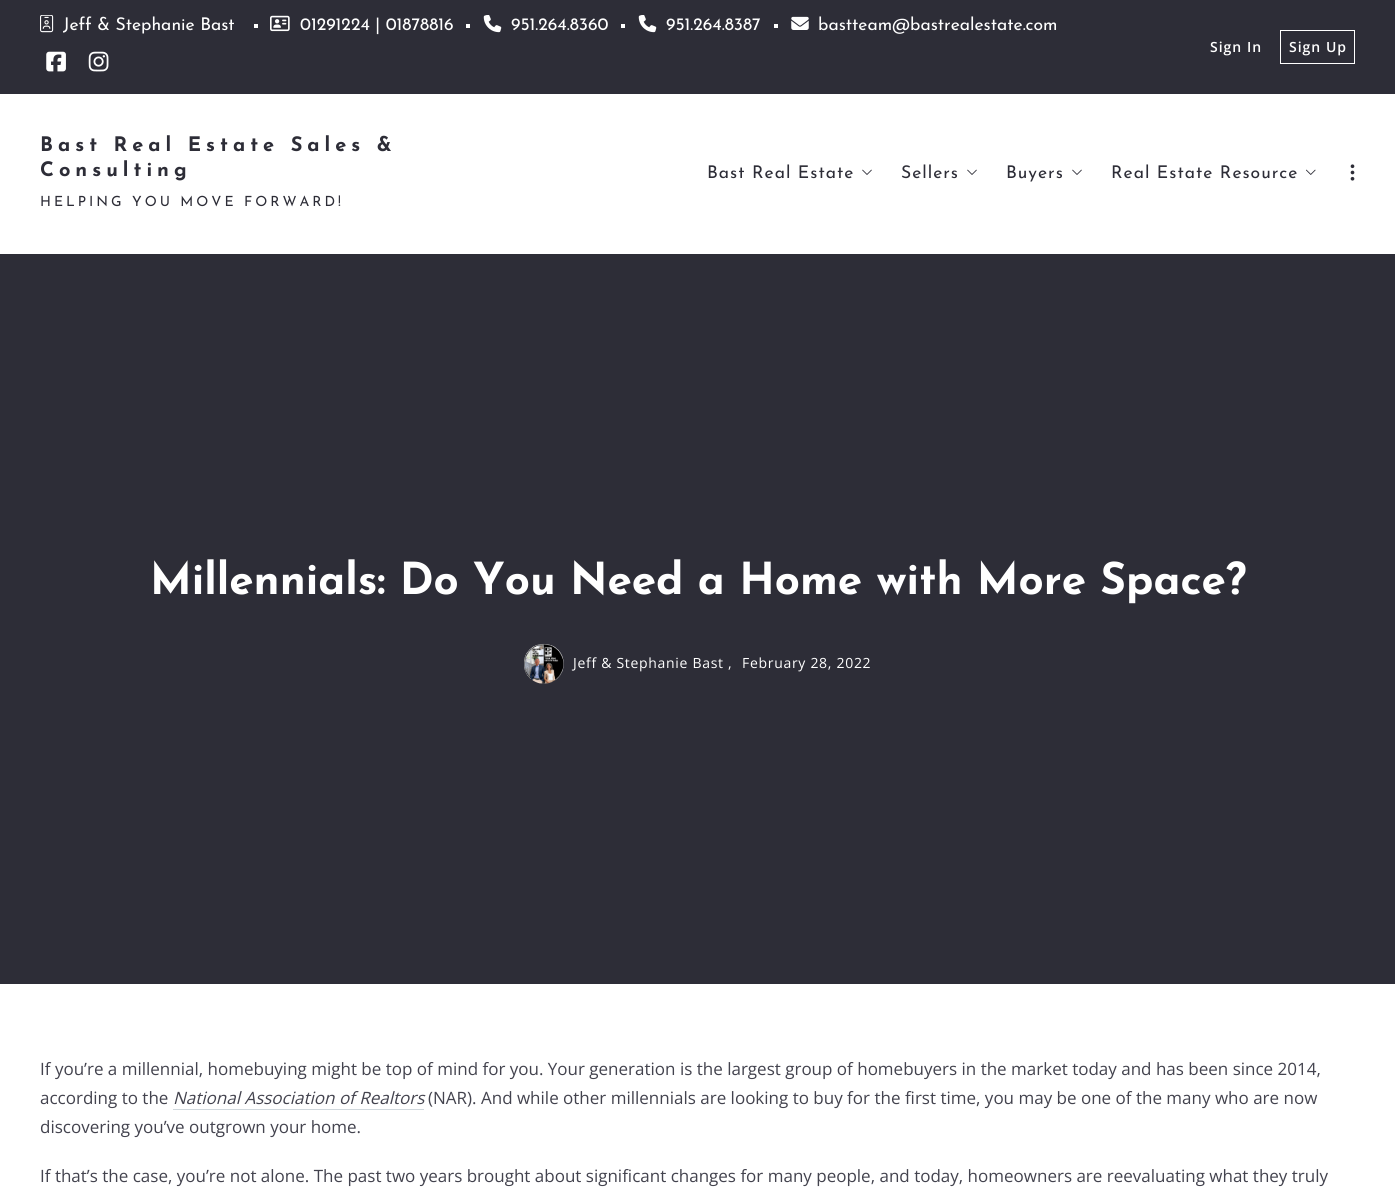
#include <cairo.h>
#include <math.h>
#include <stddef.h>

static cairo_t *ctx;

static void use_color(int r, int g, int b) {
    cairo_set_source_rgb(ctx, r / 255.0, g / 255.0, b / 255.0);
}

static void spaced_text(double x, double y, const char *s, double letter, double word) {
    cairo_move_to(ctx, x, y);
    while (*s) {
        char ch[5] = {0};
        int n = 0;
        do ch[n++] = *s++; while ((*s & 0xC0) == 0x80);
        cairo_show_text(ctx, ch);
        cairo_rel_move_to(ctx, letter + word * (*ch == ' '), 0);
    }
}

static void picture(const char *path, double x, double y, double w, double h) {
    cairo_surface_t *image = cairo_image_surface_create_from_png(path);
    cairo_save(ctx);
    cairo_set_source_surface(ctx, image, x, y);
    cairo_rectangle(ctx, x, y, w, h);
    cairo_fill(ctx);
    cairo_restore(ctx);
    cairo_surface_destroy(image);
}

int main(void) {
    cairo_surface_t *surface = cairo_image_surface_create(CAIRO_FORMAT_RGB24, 1395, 1187);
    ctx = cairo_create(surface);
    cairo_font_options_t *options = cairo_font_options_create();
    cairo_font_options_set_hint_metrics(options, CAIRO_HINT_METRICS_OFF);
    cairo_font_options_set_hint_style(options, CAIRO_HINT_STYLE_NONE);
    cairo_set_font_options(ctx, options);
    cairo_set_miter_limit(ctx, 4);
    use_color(255, 255, 255);
    cairo_paint(ctx);
    use_color(45, 45, 55);
    cairo_rectangle(ctx, 0, 0, 1395, 94);
    cairo_fill(ctx);
    picture("img1.png", 40, 15, 14, 18);
    cairo_select_font_face(ctx, "Josefin Sans", CAIRO_FONT_SLANT_NORMAL, CAIRO_FONT_WEIGHT_NORMAL);
    cairo_set_font_size(ctx, 17.5);
    use_color(255, 255, 255);
    cairo_move_to(ctx, 63, 30);
    cairo_show_text(ctx, "Jeff & Stephanie Bast");
    cairo_rectangle(ctx, 254, 24, 4, 4);
    cairo_fill(ctx);
    picture("img2.png", 270, 15, 20, 17);
    cairo_move_to(ctx, 300, 30);
    cairo_show_text(ctx, "01291224 | 01878816");
    cairo_rectangle(ctx, 466, 24, 4, 4);
    cairo_fill(ctx);
    picture("img3.png", 483, 15, 19, 18);
    cairo_move_to(ctx, 511, 30);
    cairo_show_text(ctx, "951.264.8360");
    cairo_rectangle(ctx, 621, 24, 4, 4);
    cairo_fill(ctx);
    picture("img3.png", 638, 15, 19, 18);
    cairo_move_to(ctx, 666, 30);
    cairo_show_text(ctx, "951.264.8387");
    cairo_rectangle(ctx, 774, 24, 4, 4);
    cairo_fill(ctx);
    picture("img4.png", 791, 16, 18, 14);
    cairo_move_to(ctx, 818, 30);
    cairo_show_text(ctx, "bastteam@bastrealestate.com");
    picture("img5.png", 46, 51, 20, 21);
    picture("img6.png", 88, 51, 21, 21);
    cairo_select_font_face(ctx, "Open Sans SemiBold", CAIRO_FONT_SLANT_NORMAL, CAIRO_FONT_WEIGHT_NORMAL);
    cairo_set_font_size(ctx, 14);
    spaced_text(1210, 52, "Sign In", 1, 0);
    cairo_rectangle(ctx, 1280.5, 30.5, 74, 33);
    cairo_set_line_width(ctx, 1);
    cairo_stroke(ctx);
    spaced_text(1289, 52, "Sign Up", 1, 0);
    cairo_select_font_face(ctx, "Josefin Sans", CAIRO_FONT_SLANT_NORMAL, CAIRO_FONT_WEIGHT_BOLD);
    cairo_set_font_size(ctx, 20);
    use_color(45, 45, 55);
    spaced_text(40, 151, "Bast Real Estate Sales &", 5, 0);
    spaced_text(40, 176, "Consulting", 5, 0);
    cairo_select_font_face(ctx, "Josefin Sans", CAIRO_FONT_SLANT_NORMAL, CAIRO_FONT_WEIGHT_NORMAL);
    cairo_set_font_size(ctx, 14);
    spaced_text(40, 206, "HELPING YOU MOVE FORWARD!", 3, 0);
    cairo_set_font_size(ctx, 17.5);
    spaced_text(707, 178, "Bast Real Estate", 1, 0);
    picture("img7.png", 862, 169, 10, 6);
    spaced_text(901, 178, "Sellers", 1, 0);
    picture("img7.png", 967, 169, 10, 6);
    spaced_text(1006, 178, "Buyers", 1, 0);
    picture("img7.png", 1072, 169, 10, 6);
    spaced_text(1111, 178, "Real Estate Resource", 1, 0);
    picture("img8.png", 1306, 169, 10, 6);
    picture("img9.png", 1350, 164, 5, 17);
    cairo_rectangle(ctx, 0, 254, 1395, 730);
    cairo_fill(ctx);
    cairo_select_font_face(ctx, "Josefin Sans", CAIRO_FONT_SLANT_NORMAL, CAIRO_FONT_WEIGHT_BOLD);
    cairo_set_font_size(ctx, 44);
    use_color(255, 255, 255);
    cairo_move_to(ctx, 150, 594);
    cairo_show_text(ctx, "Millennials: Do You Need a Home with More Space?");
    picture("img10.png", 524, 643, 40, 41);
    cairo_select_font_face(ctx, "Open Sans", CAIRO_FONT_SLANT_NORMAL, CAIRO_FONT_WEIGHT_NORMAL);
    cairo_set_font_size(ctx, 14);
    spaced_text(573, 668, "Jeff & Stephanie Bast ,", 0.7, 0);
    spaced_text(742, 668, "February 28, 2022", 0.7, 0);
    cairo_set_font_size(ctx, 17);
    use_color(67, 67, 78);
    cairo_move_to(ctx, 40, 1075);
    cairo_show_text(ctx, "If you’re a millennial, homebuying might be top of mind for you. Your generation is the largest group of homebuyers in the market today and has been since 2014,");
    cairo_move_to(ctx, 40, 1104);
    cairo_show_text(ctx, "according to the");
    cairo_select_font_face(ctx, "Open Sans", CAIRO_FONT_SLANT_ITALIC, CAIRO_FONT_WEIGHT_NORMAL);
    cairo_move_to(ctx, 173, 1104);
    cairo_show_text(ctx, "National Association of Realtors");
    use_color(208, 216, 221);
    cairo_rectangle(ctx, 173, 1109, 251, 1);
    cairo_fill(ctx);
    cairo_select_font_face(ctx, "Open Sans", CAIRO_FONT_SLANT_NORMAL, CAIRO_FONT_WEIGHT_NORMAL);
    use_color(67, 67, 78);
    cairo_move_to(ctx, 428, 1104);
    cairo_show_text(ctx, "(NAR). And while other millennials are looking to buy for the first time, you may be one of the many who are now");
    cairo_move_to(ctx, 40, 1133);
    cairo_show_text(ctx, "discovering you’ve outgrown your home.");
    cairo_move_to(ctx, 40, 1182);
    cairo_show_text(ctx, "If that’s the case, you’re not alone. The past two years brought about significant changes for many people, and today, homeowners are reevaluating what they truly");
    cairo_surface_write_to_png(surface, "result.png");
    cairo_font_options_destroy(options);
    cairo_destroy(ctx);
    cairo_surface_destroy(surface);
    return 0;
}
